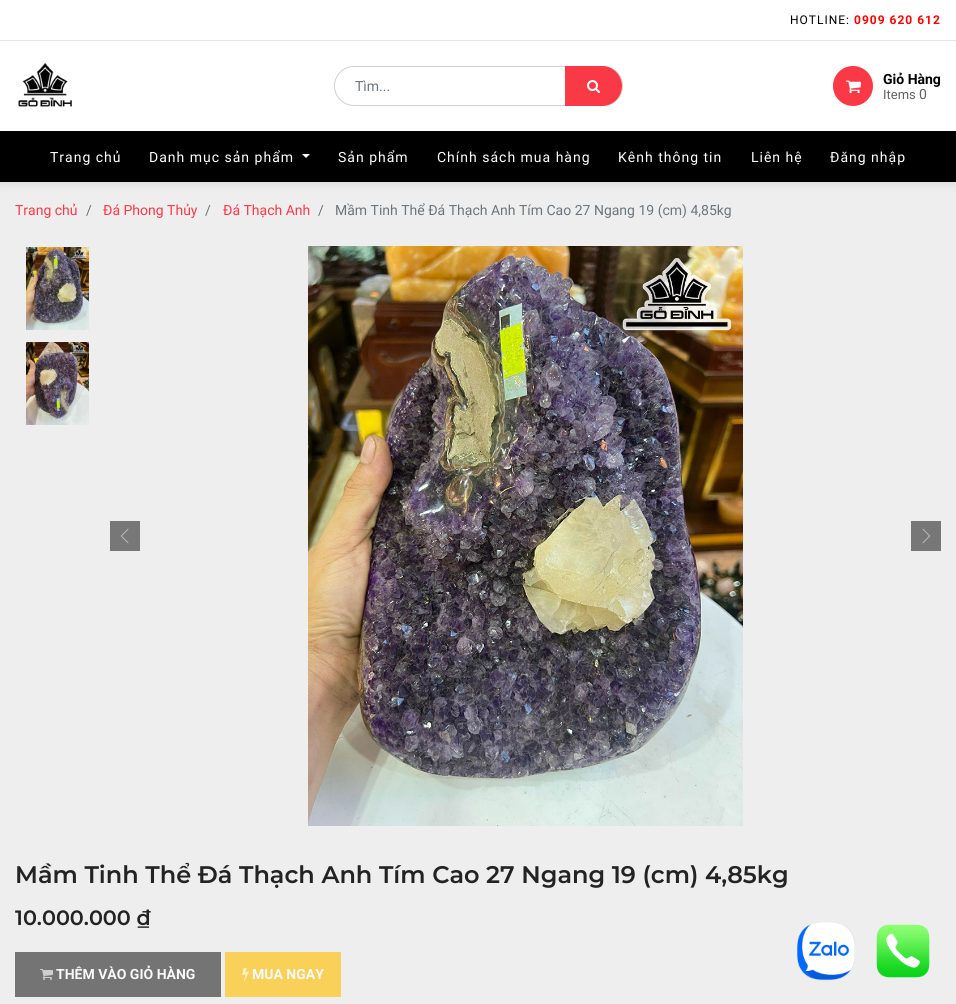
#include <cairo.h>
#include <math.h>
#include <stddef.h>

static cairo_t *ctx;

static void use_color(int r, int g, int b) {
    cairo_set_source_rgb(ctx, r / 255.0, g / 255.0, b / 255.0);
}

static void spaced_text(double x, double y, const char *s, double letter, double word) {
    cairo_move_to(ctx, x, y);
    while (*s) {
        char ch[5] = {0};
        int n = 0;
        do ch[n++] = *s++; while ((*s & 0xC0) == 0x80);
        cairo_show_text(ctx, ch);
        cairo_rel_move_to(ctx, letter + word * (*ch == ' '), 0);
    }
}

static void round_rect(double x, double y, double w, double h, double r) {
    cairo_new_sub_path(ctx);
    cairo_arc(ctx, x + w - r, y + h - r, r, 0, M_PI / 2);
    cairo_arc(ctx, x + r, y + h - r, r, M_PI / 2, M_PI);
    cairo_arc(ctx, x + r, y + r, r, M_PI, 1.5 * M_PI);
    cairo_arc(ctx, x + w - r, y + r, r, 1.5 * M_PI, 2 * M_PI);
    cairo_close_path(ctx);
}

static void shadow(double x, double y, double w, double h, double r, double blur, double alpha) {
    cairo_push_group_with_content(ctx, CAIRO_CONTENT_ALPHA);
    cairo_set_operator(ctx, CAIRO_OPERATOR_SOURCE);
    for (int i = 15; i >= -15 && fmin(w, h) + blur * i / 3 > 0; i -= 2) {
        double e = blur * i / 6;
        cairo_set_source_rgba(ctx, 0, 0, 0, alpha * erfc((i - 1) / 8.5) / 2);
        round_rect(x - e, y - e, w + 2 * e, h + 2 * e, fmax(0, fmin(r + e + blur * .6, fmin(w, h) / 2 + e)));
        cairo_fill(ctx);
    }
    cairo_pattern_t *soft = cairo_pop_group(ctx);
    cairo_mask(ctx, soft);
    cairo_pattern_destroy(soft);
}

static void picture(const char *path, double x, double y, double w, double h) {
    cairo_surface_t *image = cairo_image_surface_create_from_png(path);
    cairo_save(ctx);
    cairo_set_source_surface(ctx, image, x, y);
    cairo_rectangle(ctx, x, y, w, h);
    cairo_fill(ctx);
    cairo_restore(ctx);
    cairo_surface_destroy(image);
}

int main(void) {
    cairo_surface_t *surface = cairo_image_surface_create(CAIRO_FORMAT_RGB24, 956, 1004);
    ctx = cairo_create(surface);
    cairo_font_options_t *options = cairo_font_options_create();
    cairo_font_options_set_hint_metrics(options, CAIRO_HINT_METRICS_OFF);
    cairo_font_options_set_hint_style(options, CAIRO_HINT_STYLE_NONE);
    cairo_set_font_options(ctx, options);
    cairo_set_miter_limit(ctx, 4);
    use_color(238, 238, 238);
    cairo_paint(ctx);
    use_color(0, 0, 0);
    shadow(0, 0, 956, 182, 0, 6, 0.12);
    use_color(255, 255, 255);
    cairo_rectangle(ctx, 0, 0, 956, 131);
    cairo_fill(ctx);
    use_color(230, 230, 230);
    cairo_rectangle(ctx, 0, 40, 956, 1);
    cairo_fill(ctx);
    cairo_select_font_face(ctx, "Roboto", CAIRO_FONT_SLANT_NORMAL, CAIRO_FONT_WEIGHT_NORMAL);
    cairo_set_font_size(ctx, 12);
    use_color(0, 0, 0);
    spaced_text(790, 24, "HOTLINE:", 1, 0);
    cairo_select_font_face(ctx, "Roboto", CAIRO_FONT_SLANT_NORMAL, CAIRO_FONT_WEIGHT_BOLD);
    use_color(255, 0, 0);
    spaced_text(854, 24, "0909 620 612", 1, 0);
    picture("img1.png", 18, 62, 54, 45);
    round_rect(334.5, 66.5, 288, 39, 19.5);
    use_color(209, 209, 209);
    cairo_set_line_width(ctx, 1);
    cairo_stroke(ctx);
    cairo_select_font_face(ctx, "Roboto", CAIRO_FONT_SLANT_NORMAL, CAIRO_FONT_WEIGHT_NORMAL);
    cairo_set_font_size(ctx, 14);
    use_color(108, 117, 125);
    cairo_move_to(ctx, 355, 91);
    cairo_show_text(ctx, "Tìm...");
    use_color(250, 57, 70);
    cairo_new_path(ctx);
    cairo_move_to(ctx, 566, 67);
    cairo_line_to(ctx, 602, 67);
    cairo_curve_to(ctx, 612.5, 67, 621, 75.5, 621, 86);
    cairo_curve_to(ctx, 621, 96.5, 612.5, 105, 602, 105);
    cairo_line_to(ctx, 566, 105);
    cairo_close_path(ctx);
    cairo_fill_preserve(ctx);
    cairo_set_line_width(ctx, 2);
    cairo_stroke(ctx);
    picture("img2.png", 587, 80, 13, 13);
    cairo_arc(ctx, 853, 86, 20, 0, 2 * M_PI);
    cairo_fill(ctx);
    picture("img3.png", 846, 80, 15, 14);
    cairo_select_font_face(ctx, "Roboto", CAIRO_FONT_SLANT_NORMAL, CAIRO_FONT_WEIGHT_BOLD);
    use_color(0, 0, 0);
    cairo_move_to(ctx, 883, 84);
    cairo_show_text(ctx, "Giỏ Hàng");
    cairo_select_font_face(ctx, "Roboto", CAIRO_FONT_SLANT_NORMAL, CAIRO_FONT_WEIGHT_NORMAL);
    cairo_set_font_size(ctx, 13);
    use_color(97, 97, 97);
    cairo_move_to(ctx, 883, 99);
    cairo_show_text(ctx, "Items");
    cairo_set_font_size(ctx, 14);
    cairo_move_to(ctx, 919, 99);
    cairo_show_text(ctx, "0");
    use_color(0, 0, 0);
    cairo_rectangle(ctx, 0, 131, 956, 51);
    cairo_fill(ctx);
    use_color(255, 255, 255);
    spaced_text(50, 162, "Trang chủ", 1, 0);
    spaced_text(149, 162, "Danh mục sản phẩm", 1, 0);
    cairo_new_path(ctx);
    cairo_move_to(ctx, 302, 154);
    cairo_line_to(ctx, 310, 154);
    cairo_line_to(ctx, 306, 158);
    cairo_close_path(ctx);
    cairo_fill(ctx);
    spaced_text(338, 162, "Sản phẩm", 1, 0);
    spaced_text(437, 162, "Chính sách mua hàng", 1, 0);
    spaced_text(618, 162, "Kênh thông tin", 1, 0);
    spaced_text(751, 162, "Liên hệ", 1, 0);
    spaced_text(830, 162, "Đăng nhập", 1, 0);
    use_color(250, 57, 70);
    cairo_move_to(ctx, 15, 215);
    cairo_show_text(ctx, "Trang chủ");
    use_color(108, 117, 125);
    cairo_move_to(ctx, 86, 215);
    cairo_show_text(ctx, "/");
    use_color(250, 57, 70);
    cairo_move_to(ctx, 103, 215);
    cairo_show_text(ctx, "Đá Phong Thủy");
    use_color(108, 117, 125);
    cairo_move_to(ctx, 205, 215);
    cairo_show_text(ctx, "/");
    use_color(250, 57, 70);
    cairo_move_to(ctx, 223, 215);
    cairo_show_text(ctx, "Đá Thạch Anh");
    use_color(108, 117, 125);
    cairo_move_to(ctx, 318, 215);
    cairo_show_text(ctx, "/");
    cairo_move_to(ctx, 335, 215);
    cairo_show_text(ctx, "Mầm Tinh Thể Đá Thạch Anh Tím Cao 27 Ngang 19 (cm) 4,85kg");
    picture("img4.png", 26, 247, 63, 83);
    picture("img5.png", 26, 342, 63, 83);
    use_color(119, 119, 119);
    cairo_rectangle(ctx, 110, 521, 30, 30);
    cairo_fill(ctx);
    picture("img6.png", 120, 528, 9, 16);
    picture("img7.png", 308, 246, 435, 580);
    cairo_rectangle(ctx, 911, 521, 30, 30);
    cairo_fill(ctx);
    picture("img8.png", 922, 528, 9, 16);
    cairo_select_font_face(ctx, "Montserrat SemiBold", CAIRO_FONT_SLANT_NORMAL, CAIRO_FONT_WEIGHT_NORMAL);
    cairo_set_font_size(ctx, 24);
    use_color(35, 35, 35);
    cairo_move_to(ctx, 15, 883);
    cairo_show_text(ctx, "Mầm Tinh Thể Đá Thạch Anh Tím Cao 27 Ngang 19 (cm) 4,85kg");
    cairo_set_font_size(ctx, 20.75);
    cairo_move_to(ctx, 15, 925);
    cairo_show_text(ctx, "10.000.000 ₫");
    use_color(116, 116, 116);
    cairo_rectangle(ctx, 15, 952, 206, 45);
    cairo_fill(ctx);
    picture("img9.png", 40, 969, 13, 11);
    cairo_select_font_face(ctx, "Roboto", CAIRO_FONT_SLANT_NORMAL, CAIRO_FONT_WEIGHT_BOLD);
    cairo_set_font_size(ctx, 14);
    use_color(249, 249, 249);
    cairo_move_to(ctx, 56, 979);
    cairo_show_text(ctx, "THÊM VÀO GIỎ HÀNG");
    use_color(249, 209, 88);
    cairo_rectangle(ctx, 225, 952, 116, 45);
    cairo_fill(ctx);
    picture("img10.png", 242, 968, 7, 13);
    use_color(249, 249, 249);
    cairo_move_to(ctx, 252, 979);
    cairo_show_text(ctx, "MUA NGAY");
    picture("img11.png", 797, 922, 58, 59);
    picture("img12.png", 876, 924, 54, 54);
    cairo_surface_write_to_png(surface, "result.png");
    cairo_font_options_destroy(options);
    cairo_destroy(ctx);
    cairo_surface_destroy(surface);
    return 0;
}
